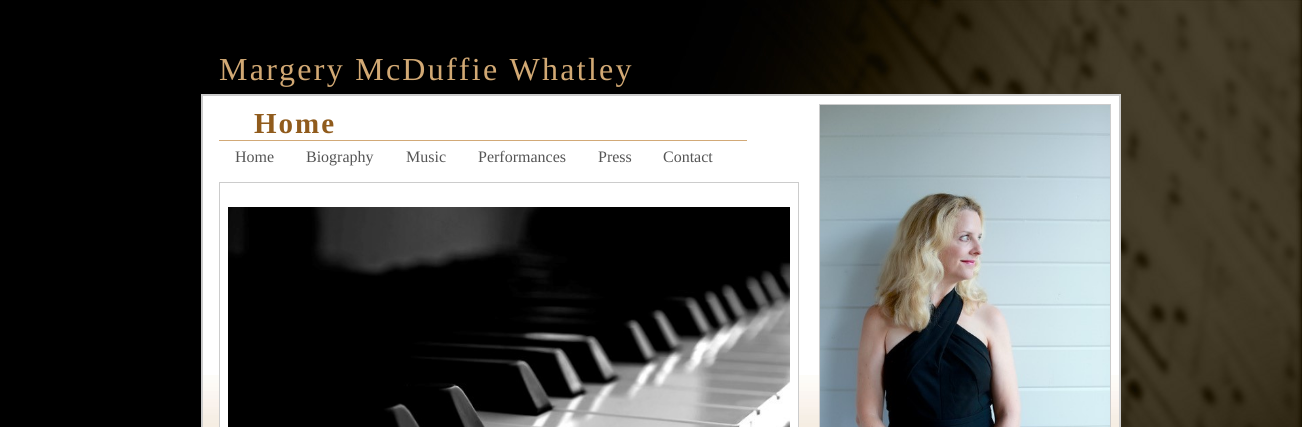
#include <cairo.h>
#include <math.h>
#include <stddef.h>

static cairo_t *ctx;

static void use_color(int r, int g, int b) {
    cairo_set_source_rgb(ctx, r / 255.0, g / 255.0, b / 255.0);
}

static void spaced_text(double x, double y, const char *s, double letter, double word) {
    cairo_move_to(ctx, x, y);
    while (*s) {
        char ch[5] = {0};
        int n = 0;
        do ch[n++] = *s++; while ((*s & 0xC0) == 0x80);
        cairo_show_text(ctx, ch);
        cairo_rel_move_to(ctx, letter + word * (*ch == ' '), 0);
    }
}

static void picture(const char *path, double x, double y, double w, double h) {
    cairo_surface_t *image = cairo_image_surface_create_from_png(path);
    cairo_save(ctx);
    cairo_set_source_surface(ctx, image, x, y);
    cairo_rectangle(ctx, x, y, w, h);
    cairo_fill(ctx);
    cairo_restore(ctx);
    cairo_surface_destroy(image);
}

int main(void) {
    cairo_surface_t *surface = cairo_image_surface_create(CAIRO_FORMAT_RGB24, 1302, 427);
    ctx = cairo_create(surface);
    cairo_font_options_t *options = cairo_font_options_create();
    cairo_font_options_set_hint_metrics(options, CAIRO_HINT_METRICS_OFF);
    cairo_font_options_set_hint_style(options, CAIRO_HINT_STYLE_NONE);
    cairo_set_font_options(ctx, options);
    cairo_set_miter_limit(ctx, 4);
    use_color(0, 0, 0);
    cairo_paint(ctx);
    picture("img1.png", 636, 0, 666, 427);
    cairo_select_font_face(ctx, "Liberation Serif", CAIRO_FONT_SLANT_NORMAL, CAIRO_FONT_WEIGHT_NORMAL);
    cairo_set_font_size(ctx, 32);
    use_color(210, 169, 116);
    spaced_text(219, 80, "Margery McDuffie Whatley", 2.25, 0);
    use_color(255, 255, 255);
    cairo_rectangle(ctx, 203, 96, 916, 279);
    cairo_fill(ctx);
    picture("img2.png", 203, 375, 916, 52);
    cairo_rectangle(ctx, 202, 95, 918, 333);
    use_color(204, 204, 204);
    cairo_stroke(ctx);
    use_color(210, 169, 119);
    cairo_rectangle(ctx, 219, 140, 528, 1);
    cairo_fill(ctx);
    cairo_select_font_face(ctx, "Liberation Serif", CAIRO_FONT_SLANT_NORMAL, CAIRO_FONT_WEIGHT_BOLD);
    cairo_set_font_size(ctx, 29);
    use_color(144, 91, 28);
    spaced_text(254, 133, "Home", 2, 0);
    cairo_select_font_face(ctx, "Liberation Serif", CAIRO_FONT_SLANT_NORMAL, CAIRO_FONT_WEIGHT_NORMAL);
    cairo_set_font_size(ctx, 16);
    use_color(85, 85, 85);
    cairo_move_to(ctx, 235, 162);
    cairo_show_text(ctx, "Home");
    cairo_move_to(ctx, 306, 162);
    cairo_show_text(ctx, "Biography");
    cairo_move_to(ctx, 406, 162);
    cairo_show_text(ctx, "Music");
    cairo_move_to(ctx, 478, 162);
    cairo_show_text(ctx, "Performances");
    cairo_move_to(ctx, 598, 162);
    cairo_show_text(ctx, "Press");
    cairo_move_to(ctx, 663, 162);
    cairo_show_text(ctx, "Contact");
    use_color(255, 255, 255);
    cairo_rectangle(ctx, 220, 375, 578, 52);
    cairo_fill(ctx);
    cairo_rectangle(ctx, 219.5, 182.5, 579, 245);
    use_color(204, 204, 204);
    cairo_set_line_width(ctx, 1);
    cairo_stroke(ctx);
    picture("img3.png", 228, 207, 562, 220);
    cairo_rectangle(ctx, 819.5, 104.5, 291, 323);
    cairo_stroke(ctx);
    picture("img4.png", 820, 105, 290, 322);
    cairo_surface_write_to_png(surface, "result.png");
    cairo_font_options_destroy(options);
    cairo_destroy(ctx);
    cairo_surface_destroy(surface);
    return 0;
}
